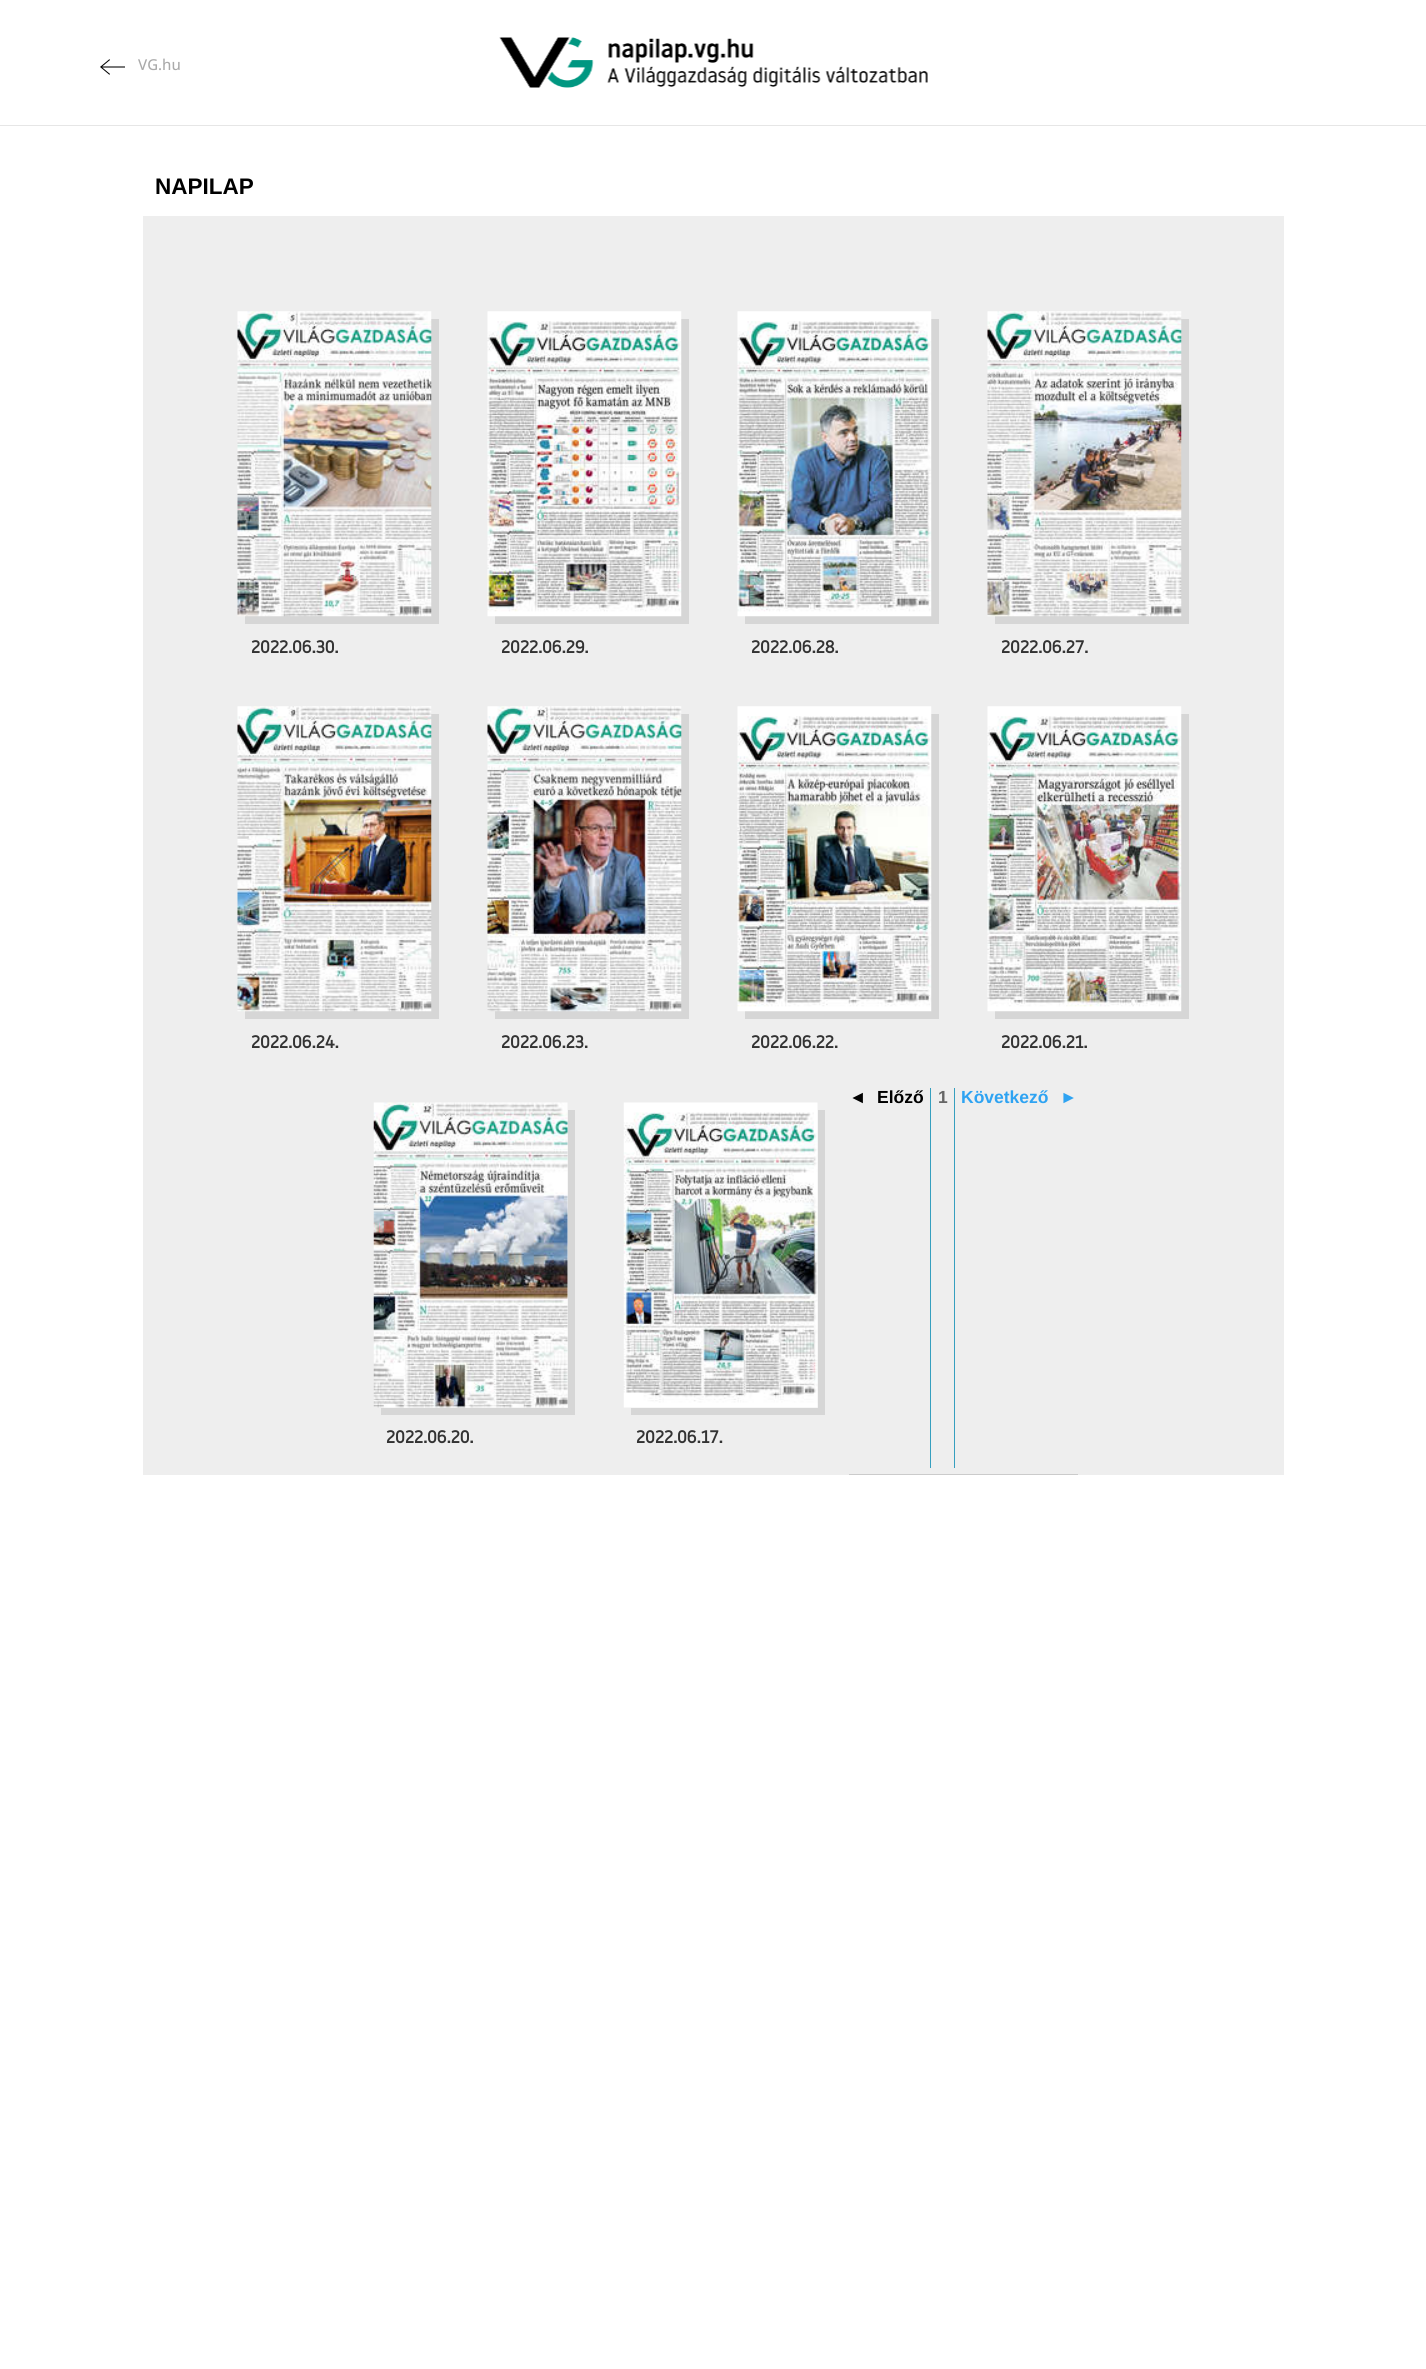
#include <cairo.h>
#include <math.h>
#include <stddef.h>

static cairo_t *ctx;

static void use_color(int r, int g, int b) {
    cairo_set_source_rgb(ctx, r / 255.0, g / 255.0, b / 255.0);
}

static void picture(const char *path, double x, double y, double w, double h) {
    cairo_surface_t *image = cairo_image_surface_create_from_png(path);
    cairo_save(ctx);
    cairo_set_source_surface(ctx, image, x, y);
    cairo_rectangle(ctx, x, y, w, h);
    cairo_fill(ctx);
    cairo_restore(ctx);
    cairo_surface_destroy(image);
}

int main(void) {
    cairo_surface_t *surface = cairo_image_surface_create(CAIRO_FORMAT_RGB24, 1426, 2369);
    ctx = cairo_create(surface);
    cairo_font_options_t *options = cairo_font_options_create();
    cairo_font_options_set_hint_metrics(options, CAIRO_HINT_METRICS_OFF);
    cairo_font_options_set_hint_style(options, CAIRO_HINT_STYLE_NONE);
    cairo_set_font_options(ctx, options);
    cairo_set_miter_limit(ctx, 4);
    use_color(255, 255, 255);
    cairo_paint(ctx);
    use_color(230, 230, 230);
    cairo_rectangle(ctx, 0, 125, 1426, 1);
    cairo_fill(ctx);
    picture("img1.png", 100, 59, 25, 16);
    cairo_select_font_face(ctx, "Open Sans Medium", CAIRO_FONT_SLANT_NORMAL, CAIRO_FONT_WEIGHT_NORMAL);
    cairo_set_font_size(ctx, 15);
    use_color(170, 170, 170);
    cairo_move_to(ctx, 138, 70);
    cairo_show_text(ctx, "VG.hu");
    picture("img2.png", 499, 37, 429, 51);
    cairo_select_font_face(ctx, "Liberation Sans", CAIRO_FONT_SLANT_NORMAL, CAIRO_FONT_WEIGHT_BOLD);
    cairo_set_font_size(ctx, 22.5);
    use_color(0, 0, 0);
    cairo_move_to(ctx, 155, 194);
    cairo_show_text(ctx, "NAPILAP");
    use_color(238, 238, 238);
    cairo_rectangle(ctx, 143, 216, 1141, 1259);
    cairo_fill(ctx);
    use_color(214, 214, 214);
    cairo_new_path(ctx);
    cairo_move_to(ctx, 245, 616);
    cairo_line_to(ctx, 245, 624);
    cairo_line_to(ctx, 439, 624);
    cairo_line_to(ctx, 439, 319);
    cairo_line_to(ctx, 431, 319);
    cairo_line_to(ctx, 431, 616);
    cairo_close_path(ctx);
    cairo_fill(ctx);
    picture("img3.png", 237, 311, 195, 306);
    cairo_select_font_face(ctx, "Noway", CAIRO_FONT_SLANT_NORMAL, CAIRO_FONT_WEIGHT_BOLD);
    cairo_set_font_size(ctx, 17.5);
    use_color(51, 51, 51);
    cairo_move_to(ctx, 251, 653);
    cairo_show_text(ctx, "2022.06.30.");
    use_color(214, 214, 214);
    cairo_new_path(ctx);
    cairo_move_to(ctx, 495, 616);
    cairo_line_to(ctx, 495, 624);
    cairo_line_to(ctx, 689, 624);
    cairo_line_to(ctx, 689, 319);
    cairo_line_to(ctx, 681, 319);
    cairo_line_to(ctx, 681, 616);
    cairo_close_path(ctx);
    cairo_fill(ctx);
    picture("img4.png", 487, 311, 195, 306);
    use_color(51, 51, 51);
    cairo_move_to(ctx, 501, 653);
    cairo_show_text(ctx, "2022.06.29.");
    use_color(214, 214, 214);
    cairo_new_path(ctx);
    cairo_move_to(ctx, 745, 616);
    cairo_line_to(ctx, 745, 624);
    cairo_line_to(ctx, 939, 624);
    cairo_line_to(ctx, 939, 319);
    cairo_line_to(ctx, 931, 319);
    cairo_line_to(ctx, 931, 616);
    cairo_close_path(ctx);
    cairo_fill(ctx);
    picture("img5.png", 737, 311, 195, 306);
    use_color(51, 51, 51);
    cairo_move_to(ctx, 751, 653);
    cairo_show_text(ctx, "2022.06.28.");
    use_color(214, 214, 214);
    cairo_new_path(ctx);
    cairo_move_to(ctx, 995, 616);
    cairo_line_to(ctx, 995, 624);
    cairo_line_to(ctx, 1189, 624);
    cairo_line_to(ctx, 1189, 319);
    cairo_line_to(ctx, 1181, 319);
    cairo_line_to(ctx, 1181, 616);
    cairo_close_path(ctx);
    cairo_fill(ctx);
    picture("img6.png", 987, 311, 195, 306);
    use_color(51, 51, 51);
    cairo_move_to(ctx, 1001, 653);
    cairo_show_text(ctx, "2022.06.27.");
    use_color(214, 214, 214);
    cairo_new_path(ctx);
    cairo_move_to(ctx, 245, 1011);
    cairo_line_to(ctx, 245, 1019);
    cairo_line_to(ctx, 439, 1019);
    cairo_line_to(ctx, 439, 714);
    cairo_line_to(ctx, 431, 714);
    cairo_line_to(ctx, 431, 1011);
    cairo_close_path(ctx);
    cairo_fill(ctx);
    picture("img7.png", 237, 706, 195, 306);
    use_color(51, 51, 51);
    cairo_move_to(ctx, 251, 1048);
    cairo_show_text(ctx, "2022.06.24.");
    use_color(214, 214, 214);
    cairo_new_path(ctx);
    cairo_move_to(ctx, 495, 1011);
    cairo_line_to(ctx, 495, 1019);
    cairo_line_to(ctx, 689, 1019);
    cairo_line_to(ctx, 689, 714);
    cairo_line_to(ctx, 681, 714);
    cairo_line_to(ctx, 681, 1011);
    cairo_close_path(ctx);
    cairo_fill(ctx);
    picture("img8.png", 487, 706, 195, 306);
    use_color(51, 51, 51);
    cairo_move_to(ctx, 501, 1048);
    cairo_show_text(ctx, "2022.06.23.");
    use_color(214, 214, 214);
    cairo_new_path(ctx);
    cairo_move_to(ctx, 745, 1011);
    cairo_line_to(ctx, 745, 1019);
    cairo_line_to(ctx, 939, 1019);
    cairo_line_to(ctx, 939, 714);
    cairo_line_to(ctx, 931, 714);
    cairo_line_to(ctx, 931, 1011);
    cairo_close_path(ctx);
    cairo_fill(ctx);
    picture("img9.png", 737, 706, 195, 306);
    use_color(51, 51, 51);
    cairo_move_to(ctx, 751, 1048);
    cairo_show_text(ctx, "2022.06.22.");
    use_color(214, 214, 214);
    cairo_new_path(ctx);
    cairo_move_to(ctx, 995, 1011);
    cairo_line_to(ctx, 995, 1019);
    cairo_line_to(ctx, 1189, 1019);
    cairo_line_to(ctx, 1189, 714);
    cairo_line_to(ctx, 1181, 714);
    cairo_line_to(ctx, 1181, 1011);
    cairo_close_path(ctx);
    cairo_fill(ctx);
    picture("img10.png", 987, 706, 195, 306);
    use_color(51, 51, 51);
    cairo_move_to(ctx, 1001, 1048);
    cairo_show_text(ctx, "2022.06.21.");
    use_color(203, 203, 203);
    cairo_rectangle(ctx, 849, 1474, 229, 1);
    cairo_fill(ctx);
    cairo_select_font_face(ctx, "Liberation Sans", CAIRO_FONT_SLANT_NORMAL, CAIRO_FONT_WEIGHT_BOLD);
    use_color(0, 0, 0);
    cairo_move_to(ctx, 849, 1103);
    cairo_show_text(ctx, "◄");
    cairo_move_to(ctx, 877, 1103);
    cairo_show_text(ctx, "Előző");
    use_color(54, 159, 191);
    cairo_rectangle(ctx, 954, 1088, 1, 380);
    cairo_fill(ctx);
    cairo_rectangle(ctx, 930, 1088, 1, 380);
    cairo_fill(ctx);
    use_color(102, 102, 102);
    cairo_move_to(ctx, 938, 1103);
    cairo_show_text(ctx, "1");
    use_color(46, 163, 242);
    cairo_move_to(ctx, 961, 1103);
    cairo_show_text(ctx, "Következő");
    cairo_move_to(ctx, 1060, 1103);
    cairo_show_text(ctx, "►");
    use_color(214, 214, 214);
    cairo_new_path(ctx);
    cairo_move_to(ctx, 381, 1408);
    cairo_line_to(ctx, 381, 1415);
    cairo_line_to(ctx, 575, 1415);
    cairo_line_to(ctx, 575, 1110);
    cairo_line_to(ctx, 568, 1110);
    cairo_line_to(ctx, 568, 1408);
    cairo_close_path(ctx);
    cairo_fill(ctx);
    picture("img11.png", 373, 1102, 195, 306);
    cairo_select_font_face(ctx, "Noway", CAIRO_FONT_SLANT_NORMAL, CAIRO_FONT_WEIGHT_BOLD);
    use_color(51, 51, 51);
    cairo_move_to(ctx, 386, 1443);
    cairo_show_text(ctx, "2022.06.20.");
    use_color(214, 214, 214);
    cairo_new_path(ctx);
    cairo_move_to(ctx, 631, 1408);
    cairo_line_to(ctx, 631, 1415);
    cairo_line_to(ctx, 825, 1415);
    cairo_line_to(ctx, 825, 1110);
    cairo_line_to(ctx, 818, 1110);
    cairo_line_to(ctx, 818, 1408);
    cairo_close_path(ctx);
    cairo_fill(ctx);
    picture("img12.png", 623, 1102, 195, 306);
    use_color(51, 51, 51);
    cairo_move_to(ctx, 636, 1443);
    cairo_show_text(ctx, "2022.06.17.");
    cairo_surface_write_to_png(surface, "result.png");
    cairo_font_options_destroy(options);
    cairo_destroy(ctx);
    cairo_surface_destroy(surface);
    return 0;
}
